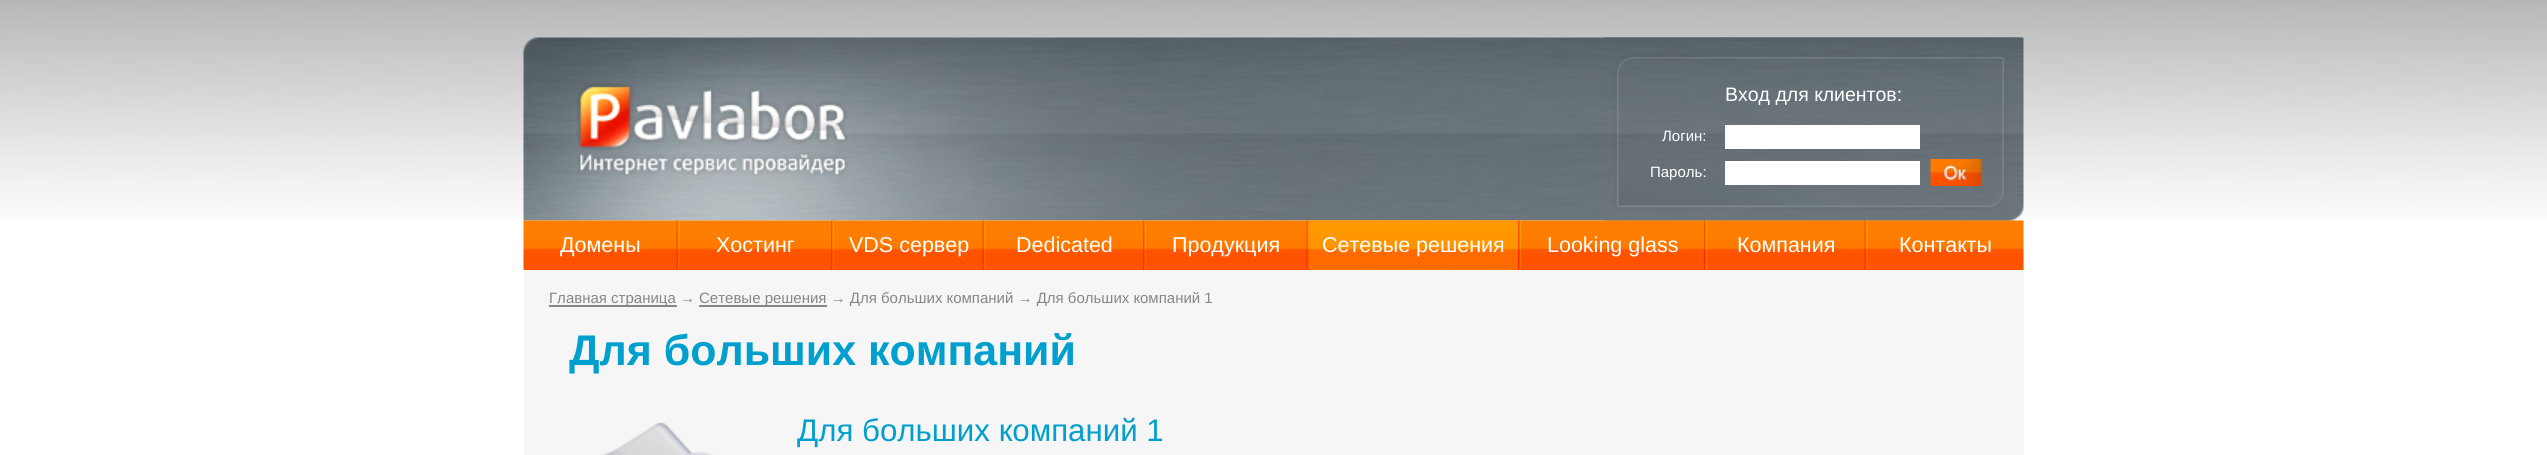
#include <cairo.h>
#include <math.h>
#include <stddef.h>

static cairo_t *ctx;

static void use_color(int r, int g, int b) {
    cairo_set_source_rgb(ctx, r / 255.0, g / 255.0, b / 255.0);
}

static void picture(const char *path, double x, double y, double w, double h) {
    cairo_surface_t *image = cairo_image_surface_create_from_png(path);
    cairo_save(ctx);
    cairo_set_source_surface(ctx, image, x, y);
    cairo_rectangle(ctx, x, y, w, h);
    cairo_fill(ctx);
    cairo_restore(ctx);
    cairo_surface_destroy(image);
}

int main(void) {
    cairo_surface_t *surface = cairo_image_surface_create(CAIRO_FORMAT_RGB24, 2547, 455);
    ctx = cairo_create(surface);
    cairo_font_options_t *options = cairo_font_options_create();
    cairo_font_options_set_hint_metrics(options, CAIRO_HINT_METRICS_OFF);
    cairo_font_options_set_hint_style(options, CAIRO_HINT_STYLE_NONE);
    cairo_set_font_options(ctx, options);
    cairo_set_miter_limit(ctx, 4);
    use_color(255, 255, 255);
    cairo_paint(ctx);
    picture("img1.png", 0, 0, 2547, 219);
    picture("img2.png", 523, 37, 1499, 184);
    picture("img3.png", 577, 83, 271, 93);
    picture("img4.png", 1603, 37, 421, 184);
    cairo_select_font_face(ctx, "Liberation Sans", CAIRO_FONT_SLANT_NORMAL, CAIRO_FONT_WEIGHT_NORMAL);
    cairo_set_font_size(ctx, 19.5);
    use_color(255, 255, 255);
    cairo_move_to(ctx, 1725, 101);
    cairo_show_text(ctx, "Вход для клиентов:");
    cairo_set_font_size(ctx, 15);
    cairo_move_to(ctx, 1662, 141);
    cairo_show_text(ctx, "Логин:");
    cairo_rectangle(ctx, 1725, 125, 195, 24);
    cairo_fill(ctx);
    cairo_move_to(ctx, 1650, 177);
    cairo_show_text(ctx, "Пароль:");
    cairo_rectangle(ctx, 1725, 161, 195, 24);
    cairo_fill(ctx);
    picture("img5.png", 1930, 159, 52, 27);
    use_color(246, 246, 246);
    cairo_rectangle(ctx, 2023, 221, 1, 49);
    cairo_fill(ctx);
    picture("img6.png", 523, 220, 1501, 50);
    cairo_set_font_size(ctx, 21.5);
    use_color(255, 255, 255);
    cairo_move_to(ctx, 560, 252);
    cairo_show_text(ctx, "Домены");
    picture("img7.png", 676, 220, 4, 50);
    cairo_move_to(ctx, 716, 252);
    cairo_show_text(ctx, "Хостинг");
    picture("img8.png", 831, 220, 3, 50);
    cairo_move_to(ctx, 849, 252);
    cairo_show_text(ctx, "VDS сервер");
    picture("img9.png", 982, 220, 4, 50);
    cairo_move_to(ctx, 1016, 252);
    cairo_show_text(ctx, "Dedicated");
    picture("img10.png", 1143, 220, 3, 50);
    cairo_move_to(ctx, 1172, 252);
    cairo_show_text(ctx, "Продукция");
    picture("img11.png", 1306, 220, 4, 50);
    picture("img12.png", 1309, 220, 209, 50);
    cairo_move_to(ctx, 1322, 252);
    cairo_show_text(ctx, "Сетевые решения");
    picture("img13.png", 1518, 220, 3, 50);
    cairo_move_to(ctx, 1547, 252);
    cairo_show_text(ctx, "Looking glass");
    picture("img14.png", 1704, 220, 3, 50);
    cairo_move_to(ctx, 1737, 252);
    cairo_show_text(ctx, "Компания");
    picture("img15.png", 1864, 220, 4, 50);
    cairo_move_to(ctx, 1899, 252);
    cairo_show_text(ctx, "Контакты");
    use_color(246, 246, 246);
    cairo_rectangle(ctx, 524, 270, 1500, 185);
    cairo_fill(ctx);
    use_color(138, 133, 133);
    cairo_rectangle(ctx, 549, 305, 128, 2);
    cairo_fill(ctx);
    cairo_set_font_size(ctx, 15);
    cairo_move_to(ctx, 549, 303);
    cairo_show_text(ctx, "Главная страница →");
    cairo_rectangle(ctx, 699, 305, 128, 2);
    cairo_fill(ctx);
    cairo_move_to(ctx, 699, 303);
    cairo_show_text(ctx, "Сетевые решения → Для больших компаний → Для больших компаний 1");
    cairo_select_font_face(ctx, "Liberation Sans", CAIRO_FONT_SLANT_NORMAL, CAIRO_FONT_WEIGHT_BOLD);
    cairo_set_font_size(ctx, 42.9);
    use_color(0, 159, 205);
    cairo_move_to(ctx, 569, 365);
    cairo_show_text(ctx, "Для больших компаний");
    picture("img16.png", 600, 422, 114, 33);
    cairo_select_font_face(ctx, "Liberation Sans", CAIRO_FONT_SLANT_NORMAL, CAIRO_FONT_WEIGHT_NORMAL);
    cairo_set_font_size(ctx, 31.25);
    cairo_move_to(ctx, 797, 441);
    cairo_show_text(ctx, "Для больших компаний 1");
    cairo_surface_write_to_png(surface, "result.png");
    cairo_font_options_destroy(options);
    cairo_destroy(ctx);
    cairo_surface_destroy(surface);
    return 0;
}
